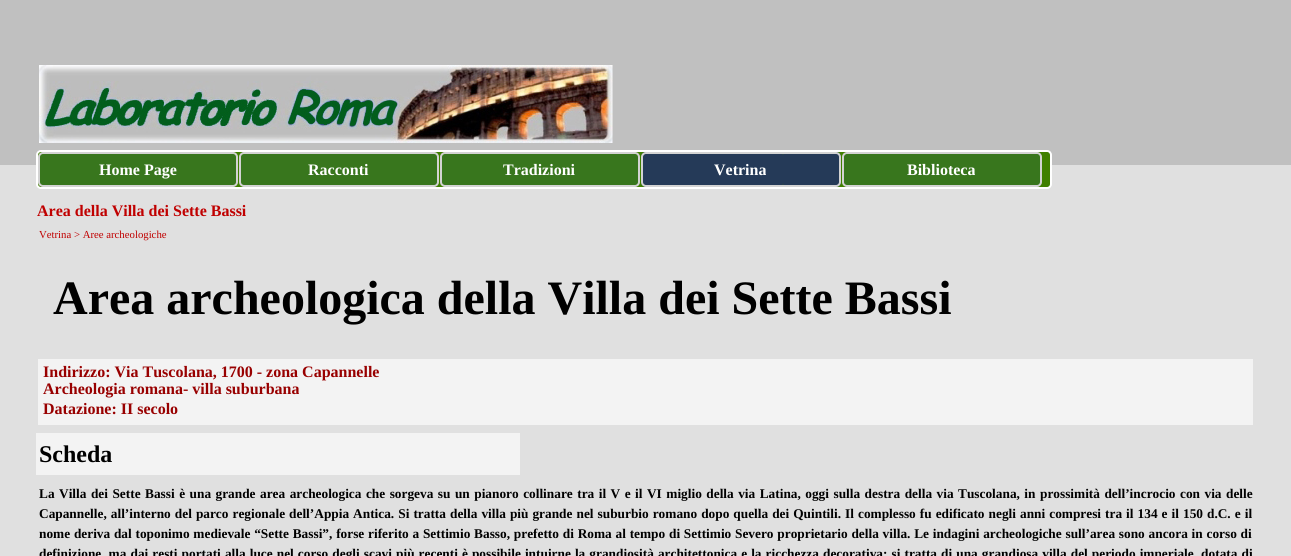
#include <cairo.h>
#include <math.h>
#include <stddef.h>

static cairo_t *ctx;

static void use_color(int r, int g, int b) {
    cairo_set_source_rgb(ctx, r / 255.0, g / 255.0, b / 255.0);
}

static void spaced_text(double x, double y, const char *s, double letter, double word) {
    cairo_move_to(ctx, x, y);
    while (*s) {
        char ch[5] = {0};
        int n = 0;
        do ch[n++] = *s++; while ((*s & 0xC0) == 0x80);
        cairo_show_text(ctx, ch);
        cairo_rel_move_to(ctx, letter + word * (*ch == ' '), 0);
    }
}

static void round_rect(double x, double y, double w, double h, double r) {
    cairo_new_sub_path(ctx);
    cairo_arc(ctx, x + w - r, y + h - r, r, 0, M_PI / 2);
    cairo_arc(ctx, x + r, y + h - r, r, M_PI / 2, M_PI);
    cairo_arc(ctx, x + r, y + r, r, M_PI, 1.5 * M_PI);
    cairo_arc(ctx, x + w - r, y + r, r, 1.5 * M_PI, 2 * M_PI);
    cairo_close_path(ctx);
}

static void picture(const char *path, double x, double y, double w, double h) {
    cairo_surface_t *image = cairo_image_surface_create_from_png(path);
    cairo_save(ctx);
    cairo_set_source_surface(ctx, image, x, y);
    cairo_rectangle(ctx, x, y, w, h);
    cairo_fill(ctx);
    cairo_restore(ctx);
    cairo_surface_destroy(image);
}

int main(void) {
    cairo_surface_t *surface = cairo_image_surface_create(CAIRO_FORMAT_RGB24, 1291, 556);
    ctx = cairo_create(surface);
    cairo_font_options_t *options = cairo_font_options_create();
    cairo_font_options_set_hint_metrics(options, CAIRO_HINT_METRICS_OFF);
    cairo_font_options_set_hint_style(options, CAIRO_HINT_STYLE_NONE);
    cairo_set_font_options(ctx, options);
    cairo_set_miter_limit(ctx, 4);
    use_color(224, 224, 224);
    cairo_paint(ctx);
    use_color(192, 192, 192);
    cairo_rectangle(ctx, 0, 0, 1291, 165);
    cairo_fill(ctx);
    picture("img1.png", 39, 65, 574, 78);
    use_color(64, 128, 0);
    round_rect(37, 151, 1014, 37, 4);
    cairo_fill_preserve(ctx);
    use_color(255, 255, 255);
    cairo_stroke(ctx);
    use_color(56, 118, 29);
    round_rect(39, 153, 198, 33, 4);
    cairo_fill_preserve(ctx);
    use_color(211, 211, 211);
    cairo_stroke(ctx);
    cairo_select_font_face(ctx, "Liberation Serif", CAIRO_FONT_SLANT_NORMAL, CAIRO_FONT_WEIGHT_BOLD);
    cairo_set_font_size(ctx, 16);
    use_color(255, 255, 255);
    cairo_move_to(ctx, 99, 175);
    cairo_show_text(ctx, "Home Page");
    use_color(56, 118, 29);
    round_rect(240, 153, 198, 33, 4);
    cairo_fill_preserve(ctx);
    use_color(211, 211, 211);
    cairo_stroke(ctx);
    use_color(255, 255, 255);
    cairo_move_to(ctx, 308, 175);
    cairo_show_text(ctx, "Racconti");
    use_color(56, 118, 29);
    round_rect(441, 153, 198, 33, 4);
    cairo_fill_preserve(ctx);
    use_color(211, 211, 211);
    cairo_stroke(ctx);
    use_color(255, 255, 255);
    cairo_move_to(ctx, 503, 175);
    cairo_show_text(ctx, "Tradizioni");
    picture("img2.png", 641, 152, 200, 35);
    round_rect(642, 153, 198, 33, 4);
    use_color(211, 211, 211);
    cairo_stroke(ctx);
    use_color(255, 255, 255);
    cairo_move_to(ctx, 714, 175);
    cairo_show_text(ctx, "Vetrina");
    use_color(56, 118, 29);
    round_rect(843, 153, 198, 33, 4);
    cairo_fill_preserve(ctx);
    use_color(211, 211, 211);
    cairo_stroke(ctx);
    use_color(255, 255, 255);
    cairo_move_to(ctx, 907, 175);
    cairo_show_text(ctx, "Biblioteca");
    use_color(192, 0, 0);
    cairo_move_to(ctx, 37, 216);
    cairo_show_text(ctx, "Area della Villa dei Sette Bassi");
    cairo_select_font_face(ctx, "Liberation Serif", CAIRO_FONT_SLANT_NORMAL, CAIRO_FONT_WEIGHT_NORMAL);
    cairo_set_font_size(ctx, 10.75);
    cairo_move_to(ctx, 39, 238);
    cairo_show_text(ctx, "Vetrina > Aree archeologiche");
    cairo_select_font_face(ctx, "Liberation Serif", CAIRO_FONT_SLANT_NORMAL, CAIRO_FONT_WEIGHT_BOLD);
    cairo_set_font_size(ctx, 48);
    use_color(0, 0, 0);
    cairo_move_to(ctx, 53, 314);
    cairo_show_text(ctx, "Area archeologica della Villa dei Sette Bassi");
    use_color(243, 243, 243);
    cairo_rectangle(ctx, 38, 359, 1215, 66);
    cairo_fill(ctx);
    cairo_set_font_size(ctx, 16);
    use_color(152, 0, 0);
    cairo_move_to(ctx, 43, 377);
    cairo_show_text(ctx, "Indirizzo: Via Tuscolana, 1700 - zona Capannelle");
    cairo_move_to(ctx, 43, 394);
    cairo_show_text(ctx, "Archeologia romana- villa suburbana");
    cairo_move_to(ctx, 43, 414);
    cairo_show_text(ctx, "Datazione: II secolo");
    use_color(243, 243, 243);
    cairo_rectangle(ctx, 36, 433, 484, 42);
    cairo_fill(ctx);
    cairo_set_font_size(ctx, 24);
    use_color(0, 0, 0);
    cairo_move_to(ctx, 39, 462);
    cairo_show_text(ctx, "Scheda");
    cairo_set_font_size(ctx, 13.33);
    spaced_text(39, 498, "La Villa dei Sette Bassi è una grande area archeologica che sorgeva su un pianoro collinare tra il V e il VI miglio della via Latina, oggi sulla destra della via Tuscolana, in prossimità dell’incrocio con via delle", 0, 1.15);
    spaced_text(39, 518, "Capannelle, all’interno del parco regionale dell’Appia Antica. Si tratta della villa più grande nel suburbio romano dopo quella dei Quintili. Il complesso fu edificato negli anni compresi tra il 134 e il 150 d.C. e il", 0, 0.7);
    spaced_text(39, 538, "nome deriva dal toponimo medievale “Sette Bassi”, forse riferito a Settimio Basso, prefetto di Roma al tempo di Settimio Severo proprietario della villa. Le indagini archeologiche sull’area sono ancora in corso di", 0, 0.45);
    spaced_text(39, 558, "definizione, ma dai resti portati alla luce nel corso degli scavi più recenti è possibile intuirne la grandiosità architettonica e la ricchezza decorativa: si tratta di una grandiosa villa del periodo imperiale, dotata di", 0, 0.75);
    cairo_surface_write_to_png(surface, "result.png");
    cairo_font_options_destroy(options);
    cairo_destroy(ctx);
    cairo_surface_destroy(surface);
    return 0;
}
